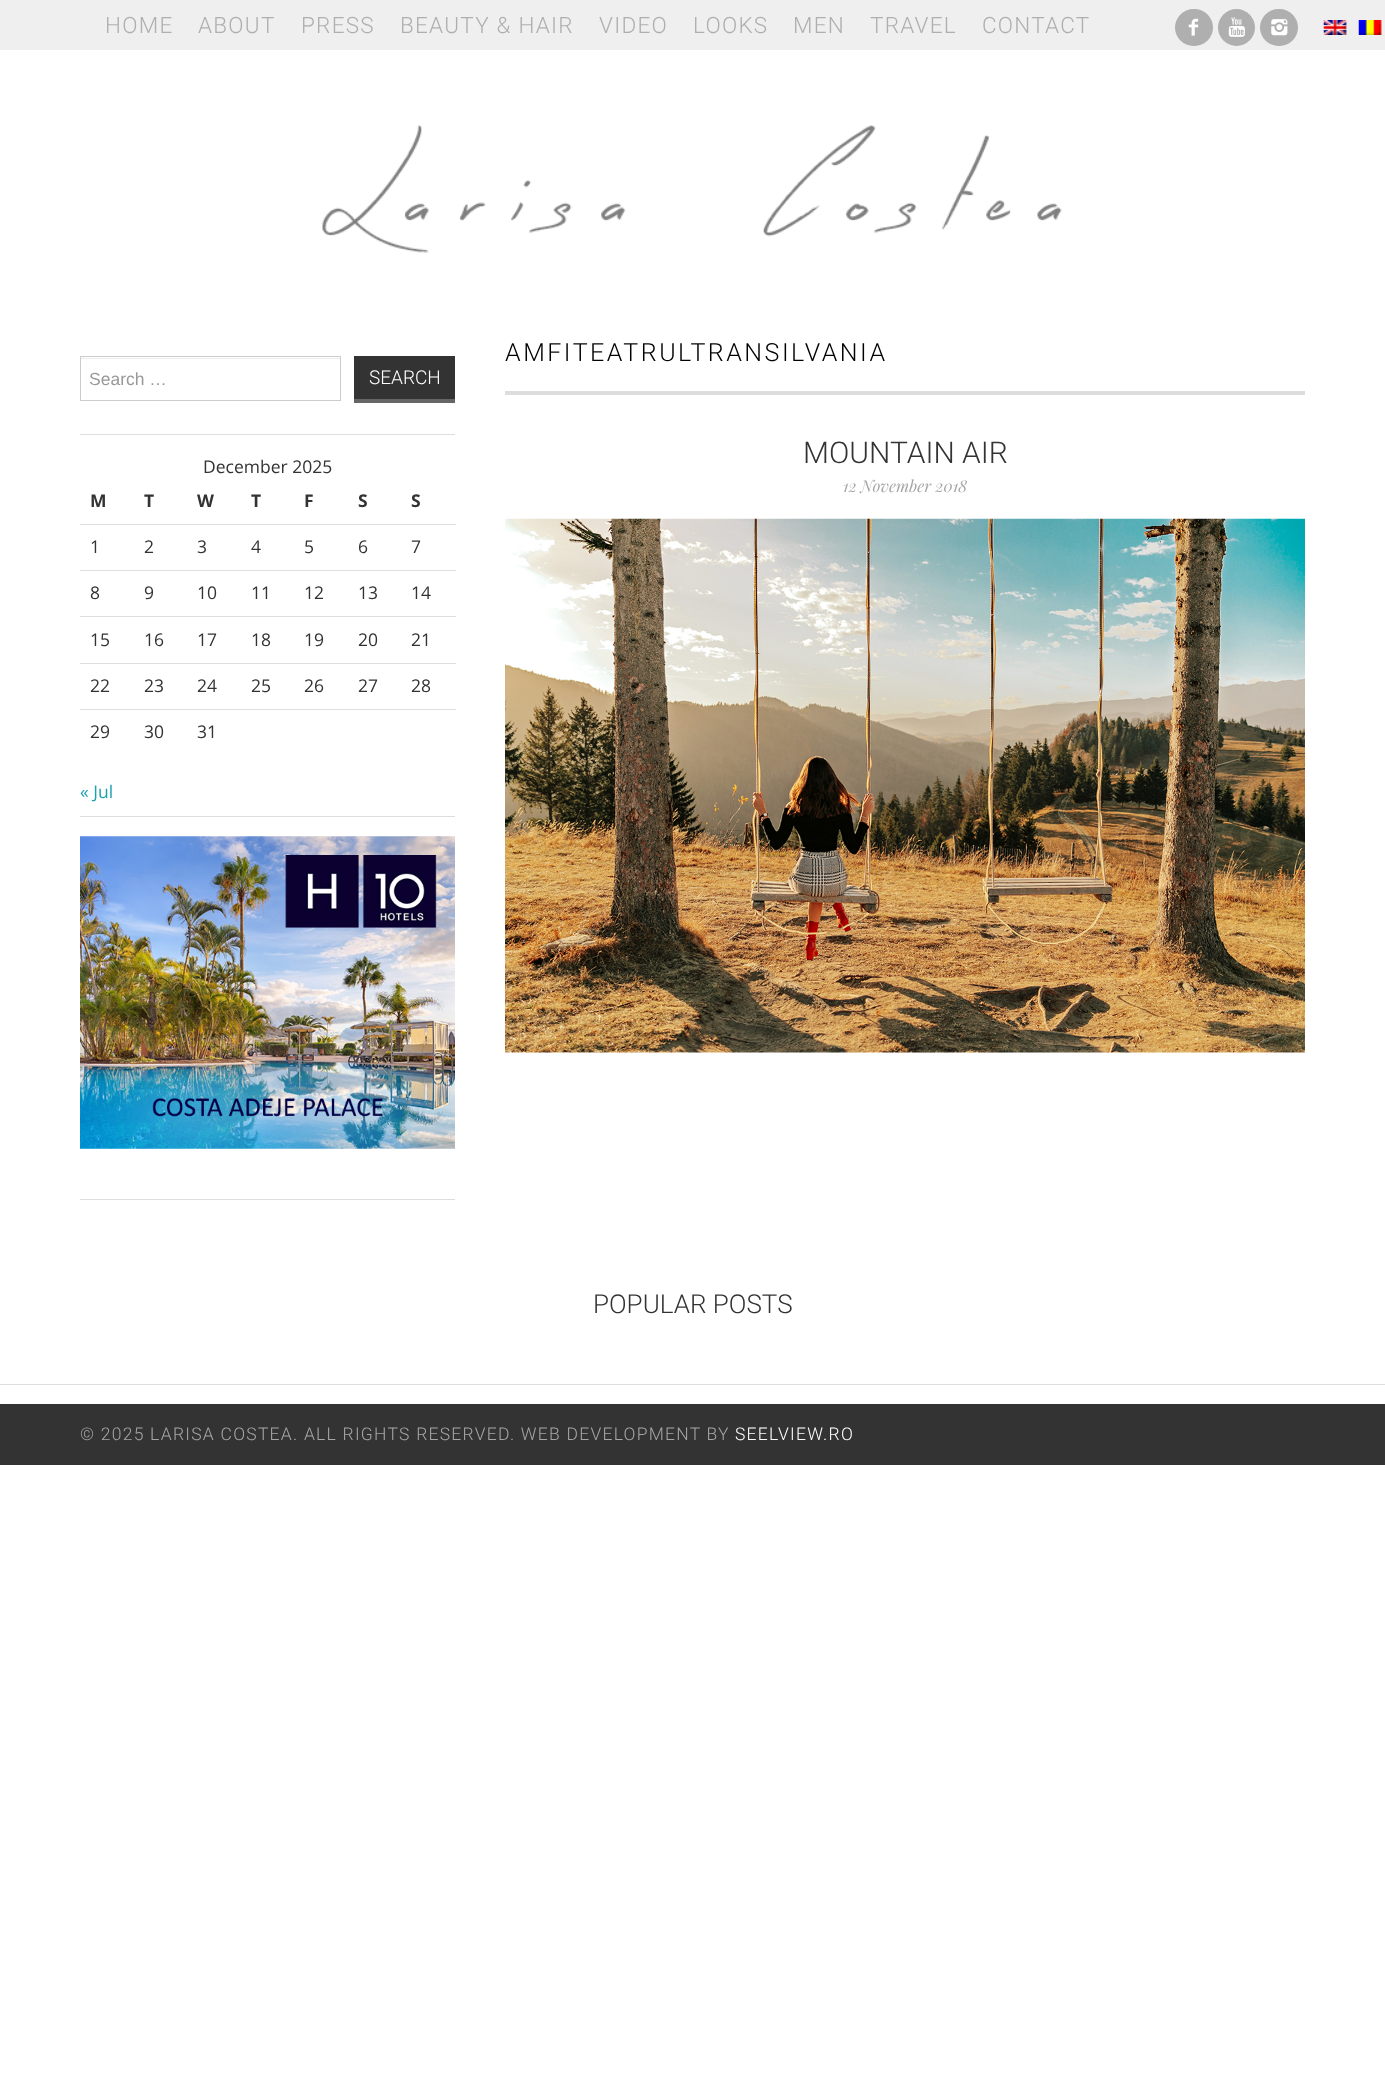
async function draw(canvas) {
  canvas.width = 1385;
  canvas.height = 2077;
  const ctx = canvas.getContext('2d');
  ctx.miterLimit = 4;
  ctx.fontKerning = 'normal';
  function label(s, x, y, font, color) {
    ctx.font = font;
    ctx.fillStyle = color;
    ctx.fillText(s, x, y);
  }
  function rect(x, y, w, h, color) {
    ctx.fillStyle = color;
    ctx.fillRect(x, y, w, h);
  }
  function roundedRect(x, y, w, h, r, color) {
    ctx.fillStyle = color;
    ctx.beginPath();
    ctx.roundRect(x, y, w, h, r);
    ctx.fill();
  }
  async function image(src, x, y, w, h) {
    const img = new Image();
    img.src = src;
    await img.decode();
    ctx.drawImage(img, x, y, w, h);
  }

  rect(0, 0, 1385, 2077, '#fff');
  rect(0, 0, 1385, 50, '#efefef');
  ctx.letterSpacing = '1.25px';
  label('HOME', 105, 33, '300 22.5px Roboto', '#afafaf');
  label('ABOUT', 198, 33, '300 22.5px Roboto', '#afafaf');
  label('PRESS', 301, 33, '300 22.5px Roboto', '#afafaf');
  label('BEAUTY & HAIR', 400, 33, '300 22.5px Roboto', '#afafaf');
  label('VIDEO', 599, 33, '300 22.5px Roboto', '#afafaf');
  label('LOOKS', 693, 33, '300 22.5px Roboto', '#afafaf');
  label('MEN', 793, 33, '300 22.5px Roboto', '#afafaf');
  label('TRAVEL', 870, 33, '300 22.5px Roboto', '#afafaf');
  label('CONTACT', 982, 33, '300 22.5px Roboto', '#afafaf');
  roundedRect(1175, 9, 38, 37, 18.5, '#afafaf');
  await image('assets/img1.png', 1188, 18, 11, 18);
  ctx.beginPath();
  ctx.arc(1236.5, 27.5, 18.5, 0, 2 * Math.PI);
  ctx.fill();
  await image('assets/img2.png', 1228, 17, 17, 20);
  roundedRect(1260, 9, 38, 37, 18.5, '#afafaf');
  await image('assets/img3.png', 1271, 19, 17, 17);
  await image('assets/img4.png', 1323, 20, 24, 15);
  await image('assets/img5.png', 1358, 20, 24, 15);
  await image('assets/img6.png', 322, 125, 740, 128);
  rect(80, 434, 375, 1, '#ddd');
  rect(81, 358, 259, 1, '#ececec');
  ctx.strokeStyle = '#ccc';
  ctx.strokeRect(80.5, 356.5, 260, 44);
  ctx.letterSpacing = '0px';
  label('Search …', 89, 385, '17.5px Liberation Sans', '#999');
  rect(354, 356, 101, 43, '#333');
  rect(354, 399, 101, 4, '#666');
  label('SEARCH', 369, 384, '300 19px Roboto', '#fff');
  rect(80, 816, 375, 1, '#ddd');
  label('December 2025', 203, 473, '17.5px Open Sans', '#333');
  label('M', 90, 507, 'bold 17.5px Open Sans', '#333');
  label('T', 144, 507, 'bold 17.5px Open Sans', '#333');
  label('W', 197, 507, 'bold 17.5px Open Sans', '#333');
  label('T', 251, 507, 'bold 17.5px Open Sans', '#333');
  label('F', 304, 507, 'bold 17.5px Open Sans', '#333');
  label('S', 358, 507, 'bold 17.5px Open Sans', '#333');
  label('S', 411, 507, 'bold 17.5px Open Sans', '#333');
  label('1', 90, 553, '17.5px Open Sans', '#333');
  label('2', 144, 553, '17.5px Open Sans', '#333');
  label('3', 197, 553, '17.5px Open Sans', '#333');
  label('4', 251, 553, '17.5px Open Sans', '#333');
  label('5', 304, 553, '17.5px Open Sans', '#333');
  label('6', 358, 553, '17.5px Open Sans', '#333');
  rect(80, 524, 376, 1, '#ddd');
  label('7', 411, 553, '17.5px Open Sans', '#333');
  label('8', 90, 599, '17.5px Open Sans', '#333');
  label('9', 144, 599, '17.5px Open Sans', '#333');
  label('10', 197, 599, '17.5px Open Sans', '#333');
  label('11', 251, 599, '17.5px Open Sans', '#333');
  label('12', 304, 599, '17.5px Open Sans', '#333');
  label('13', 358, 599, '17.5px Open Sans', '#333');
  rect(80, 570, 376, 1, '#ddd');
  label('14', 411, 599, '17.5px Open Sans', '#333');
  label('15', 90, 646, '17.5px Open Sans', '#333');
  label('16', 144, 646, '17.5px Open Sans', '#333');
  label('17', 197, 646, '17.5px Open Sans', '#333');
  label('18', 251, 646, '17.5px Open Sans', '#333');
  label('19', 304, 646, '17.5px Open Sans', '#333');
  label('20', 358, 646, '17.5px Open Sans', '#333');
  rect(80, 616, 376, 1, '#ddd');
  label('21', 411, 646, '17.5px Open Sans', '#333');
  label('22', 90, 692, '17.5px Open Sans', '#333');
  label('23', 144, 692, '17.5px Open Sans', '#333');
  label('24', 197, 692, '17.5px Open Sans', '#333');
  label('25', 251, 692, '17.5px Open Sans', '#333');
  label('26', 304, 692, '17.5px Open Sans', '#333');
  label('27', 358, 692, '17.5px Open Sans', '#333');
  rect(80, 663, 376, 1, '#ddd');
  label('28', 411, 692, '17.5px Open Sans', '#333');
  rect(80, 709, 376, 1, '#ddd');
  label('29', 90, 738, '17.5px Open Sans', '#333');
  label('30', 144, 738, '17.5px Open Sans', '#333');
  label('31', 197, 738, '17.5px Open Sans', '#333');
  label('« Jul', 80, 798, '17.5px Open Sans', '#1fa0ae');
  rect(80, 1199, 375, 1, '#ddd');
  await image('assets/img7.png', 80, 836, 375, 313);
  rect(505, 391, 800, 4, '#ddd');
  ctx.letterSpacing = '2.5px';
  label('AMFITEATRULTRANSILVANIA', 505, 361, '300 25px Roboto', '#000');
  ctx.letterSpacing = '0px';
  label('MOUNTAIN AIR', 803, 463, '300 30px Roboto', '#333');
  label('12 November 2018', 843, 492, 'italic 16.25px Playfair Display', '#a6a6a6');
  await image('assets/img8.png', 505, 518, 800, 535);
  label('POPULAR POSTS', 593, 1313, '300 26px Roboto', '#333');
  rect(0, 1384, 1385, 1, '#ddd');
  rect(0, 1404, 1385, 61, '#333');
  ctx.letterSpacing = '1.25px';
  label('© 2025 LARISA COSTEA. ALL RIGHTS RESERVED. WEB DEVELOPMENT BY', 80, 1440, '300 17.5px Roboto', '#a6a6a6');
  label('SEELVIEW.RO', 735, 1440, '300 17.5px Roboto', '#fff');
}

draw(document.querySelector('canvas'));
